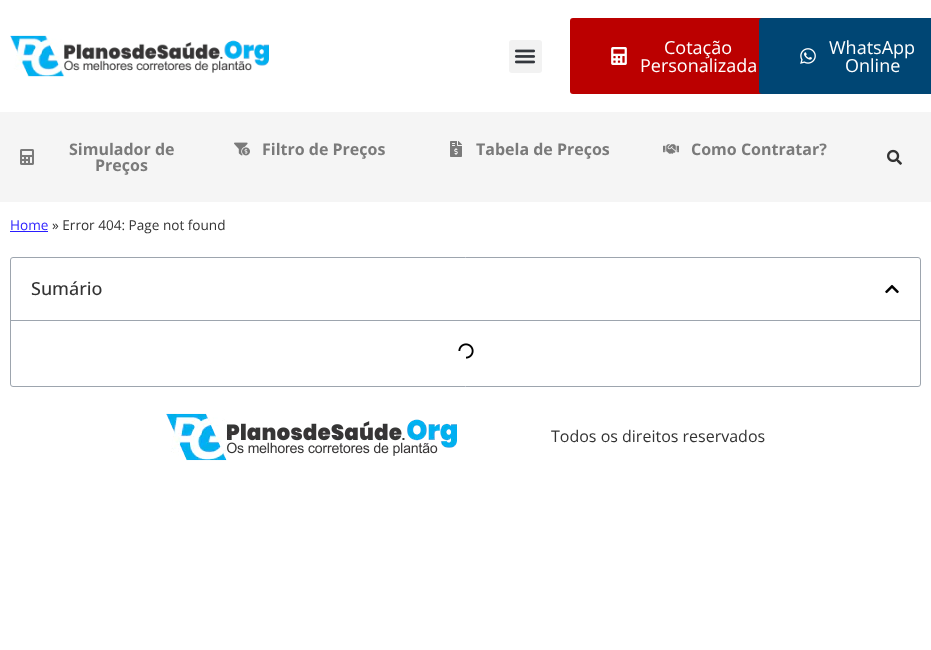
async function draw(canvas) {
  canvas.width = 931;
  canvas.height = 650;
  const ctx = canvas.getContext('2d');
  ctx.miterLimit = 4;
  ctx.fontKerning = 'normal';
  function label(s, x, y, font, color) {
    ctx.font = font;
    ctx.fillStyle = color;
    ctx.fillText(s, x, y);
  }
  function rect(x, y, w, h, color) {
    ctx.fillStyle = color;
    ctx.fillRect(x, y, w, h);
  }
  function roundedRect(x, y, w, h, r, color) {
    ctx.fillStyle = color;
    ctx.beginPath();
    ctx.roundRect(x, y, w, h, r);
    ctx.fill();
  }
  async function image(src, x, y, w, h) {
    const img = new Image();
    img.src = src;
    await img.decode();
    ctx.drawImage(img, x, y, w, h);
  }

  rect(0, 0, 931, 650, '#fff');
  await image('assets/img1.png', 10, 35, 259, 42);
  roundedRect(509, 40, 33, 33, 3, '#f2f2f2');
  await image('assets/img2.png', 514, 49, 22, 15);
  roundedRect(570, 18, 227, 76, 3, '#b00');
  await image('assets/img3.png', 611, 47, 16, 18);
  label('Cotação', 664, 54, '18px Open Sans', '#fff');
  label('Personalizada', 640, 72, '18px Open Sans', '#fff');
  roundedRect(759, 18, 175, 76, 3, '#004674');
  await image('assets/img4.png', 800, 48, 16, 16);
  label('WhatsApp', 829, 54, '18px Open Sans', '#fff');
  label('Online', 845, 72, '18px Open Sans', '#fff');
  rect(0, 112, 931, 90, '#f5f5f5');
  await image('assets/img5.png', 20, 149, 14, 16);
  label('Simulador de', 69, 155, 'bold 16px Open Sans', '#7a7a7a');
  label('Preços', 95, 171, 'bold 16px Open Sans', '#7a7a7a');
  await image('assets/img6.png', 234, 142, 16, 14);
  label('Filtro de Preços', 262, 155, 'bold 16px Open Sans', '#7a7a7a');
  await image('assets/img7.png', 450, 141, 12, 16);
  label('Tabela de Preços', 476, 155, 'bold 16px Open Sans', '#7a7a7a');
  await image('assets/img8.png', 663, 144, 16, 10);
  label('Como Contratar?', 691, 155, 'bold 16px Open Sans', '#7a7a7a');
  await image('assets/img9.png', 887, 149, 15, 16);
  label('Home', 10, 230, '13.6px Open Sans', '#2a1dff');
  rect(10, 231, 38, 1, '#2a1dff');
  label('» Error 404: Page not found', 52, 230, '13.6px Open Sans', '#333');
  ctx.beginPath();
  ctx.roundRect(10.5, 257.5, 910, 129, 2.5);
  ctx.strokeStyle = '#9da5ae';
  ctx.stroke();
  rect(11, 320, 909, 1, '#9da5ae');
  label('Sumário', 31, 295, '500 18px Open Sans', '#333');
  await image('assets/img10.png', 885, 284, 14, 10);
  await image('assets/img11.png', 458, 343, 16, 16);
  await image('assets/img12.png', 166, 413, 291, 48);
  label('Todos os direitos reservados', 551, 442, '16px Open Sans', '#333');
}

draw(document.querySelector('canvas'));
